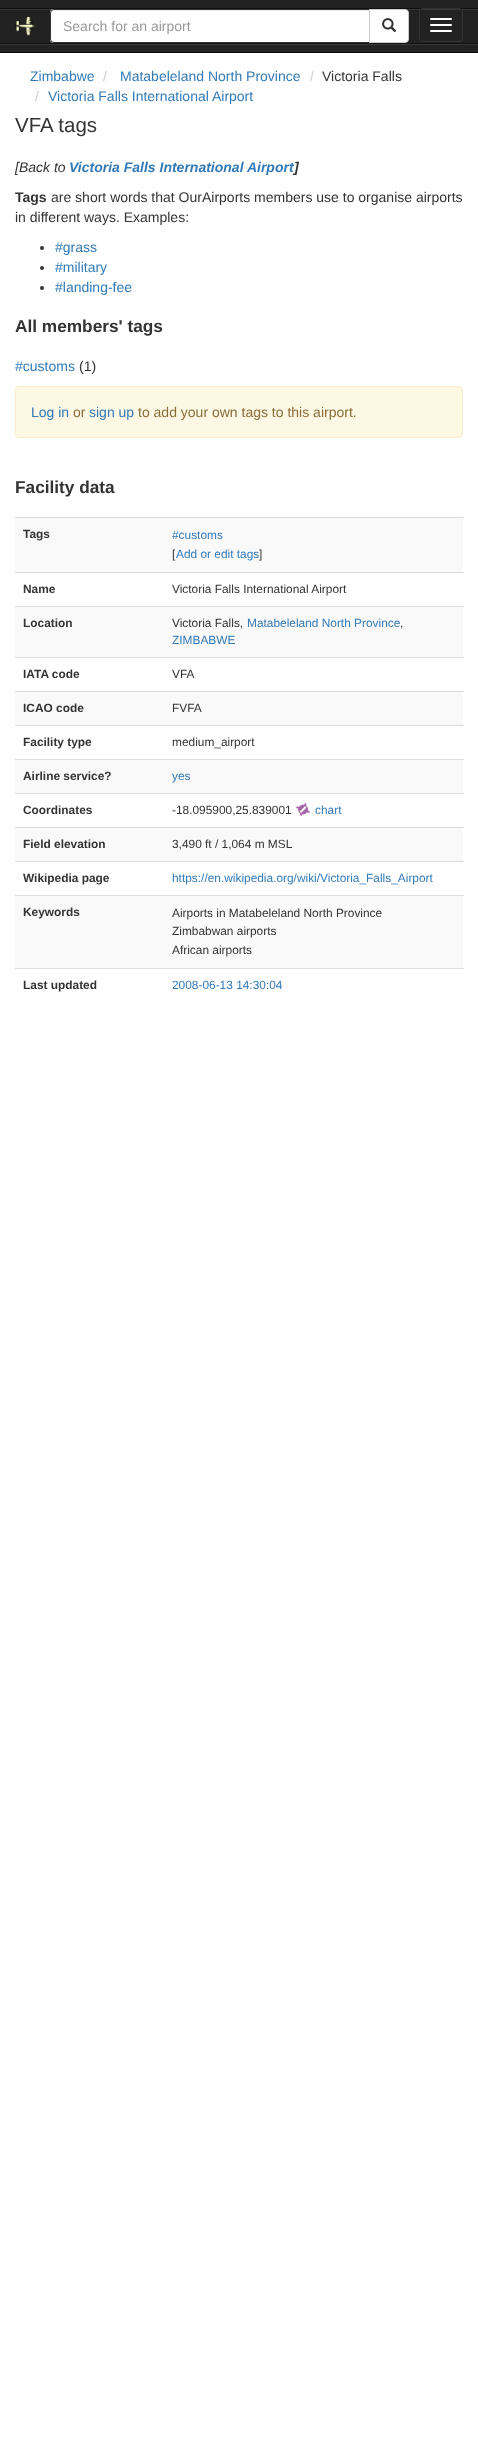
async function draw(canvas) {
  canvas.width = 478;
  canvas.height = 2452;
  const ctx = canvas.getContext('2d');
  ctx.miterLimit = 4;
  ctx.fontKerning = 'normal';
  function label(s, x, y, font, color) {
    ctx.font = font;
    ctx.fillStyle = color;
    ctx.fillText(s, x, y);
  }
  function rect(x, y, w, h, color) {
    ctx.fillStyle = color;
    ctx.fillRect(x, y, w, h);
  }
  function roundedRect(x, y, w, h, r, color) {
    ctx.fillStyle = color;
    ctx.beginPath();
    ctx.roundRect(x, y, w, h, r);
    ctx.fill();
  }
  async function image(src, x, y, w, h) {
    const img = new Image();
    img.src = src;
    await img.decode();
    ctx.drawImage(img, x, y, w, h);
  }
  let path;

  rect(0, 0, 478, 2452, '#fff');
  rect(0, 0, 478, 52, '#222');
  rect(0, 52, 478, 1, '#080808');
  await image('assets/img1.png', 15, 16, 20, 20);
  rect(0, 44, 478, 1, '#383838');
  rect(0, 9, 478, 1, '#383838');
  rect(0, 8, 478, 1, '#101010');
  rect(0, 43, 478, 1, '#101010');
  ctx.fillStyle = '#fff';
  ctx.beginPath();
  ctx.roundRect(50, 9, 320, 34, [4, 0, 0, 4]);
  ctx.fill();
  ctx.fillStyle = '#ececec';
  path = new Path2D('M54 11H369V10H54C52 10 51 12 51 14C51 12 52 11 54 11Z');
  ctx.fill(path);
  ctx.beginPath();
  ctx.roundRect(50.5, 9.5, 319, 33, [3.5, 0, 0, 3.5]);
  ctx.strokeStyle = '#333';
  ctx.stroke();
  label('Search for an airport', 63, 31, '14px Liberation Sans', '#999');
  ctx.fillStyle = '#fff';
  ctx.beginPath();
  ctx.roundRect(369.5, 9.5, 39, 33, [0, 3.5, 3.5, 0]);
  ctx.fill();
  ctx.strokeStyle = '#ccc';
  ctx.stroke();
  await image('assets/img2.png', 382, 18, 15, 14);
  ctx.beginPath();
  ctx.roundRect(419.5, 8.5, 43, 33, 3.5);
  ctx.strokeStyle = '#333';
  ctx.stroke();
  roundedRect(430, 18, 22, 2, 1, '#fff');
  roundedRect(430, 24, 22, 2, 1, '#fff');
  roundedRect(430, 30, 22, 2, 1, '#fff');
  label('Zimbabwe', 30, 81, '14px Liberation Sans', '#337ab7');
  label('/', 103, 81, '14px Liberation Sans', '#ccc');
  label('Matabeleland North Province', 120, 81, '14px Liberation Sans', '#337ab7');
  label('/', 310, 81, '14px Liberation Sans', '#ccc');
  label('Victoria Falls', 322, 81, '14px Liberation Sans', '#333');
  label('/', 35, 101, '14px Liberation Sans', '#ccc');
  label('Victoria Falls International Airport', 48, 101, '14px Liberation Sans', '#337ab7');
  label('VFA tags', 15, 132, '20.5px Liberation Sans', '#333');
  label('[Back to', 15, 172, 'italic 14px Liberation Sans', '#333');
  label('Victoria Falls International Airport', 69, 172, 'italic bold 14px Liberation Sans', '#337ab7');
  label(']', 294, 172, 'italic bold 14px Liberation Sans', '#333');
  label('Tags', 15, 202, 'bold 14px Liberation Sans', '#333');
  label('are short words that OurAirports members use to organise airports', 51, 202, '14px Liberation Sans', '#333');
  label('in different ways. Examples:', 15, 222, '14px Liberation Sans', '#333');
  ctx.beginPath();
  ctx.arc(42, 248, 2, 0, 2 * Math.PI);
  ctx.fill();
  label('#grass', 55, 252, '14px Liberation Sans', '#337ab7');
  ctx.fillStyle = '#333';
  ctx.beginPath();
  ctx.arc(42, 268, 2, 0, 2 * Math.PI);
  ctx.fill();
  label('#military', 55, 272, '14px Liberation Sans', '#337ab7');
  ctx.fillStyle = '#333';
  ctx.beginPath();
  ctx.arc(42, 288, 2, 0, 2 * Math.PI);
  ctx.fill();
  label('#landing-fee', 55, 292, '14px Liberation Sans', '#337ab7');
  label('All members\' tags', 15, 332, 'bold 17.25px Liberation Sans', '#333');
  label('#customs', 15, 371, '14px Liberation Sans', '#337ab7');
  label('(1)', 79, 371, '14px Liberation Sans', '#333');
  ctx.fillStyle = '#fcf8e3';
  ctx.beginPath();
  ctx.roundRect(15.5, 386.5, 447, 51, 3.5);
  ctx.fill();
  ctx.strokeStyle = '#faebcc';
  ctx.stroke();
  label('Log in', 31, 417, '14px Liberation Sans', '#337ab7');
  label('or', 73, 417, '14px Liberation Sans', '#8a6d3b');
  label('sign up', 89, 417, '14px Liberation Sans', '#337ab7');
  label('to add your own tags to this airport.', 138, 417, '14px Liberation Sans', '#8a6d3b');
  label('Facility data', 15, 493, 'bold 17.25px Liberation Sans', '#333');
  rect(15, 518, 448, 54, '#f9f9f9');
  label('Tags', 23, 538, 'bold 11.9px Liberation Sans', '#333');
  rect(15, 517, 449, 1, '#ddd');
  label('#customs', 172, 539, '11.9px Liberation Sans', '#337ab7');
  label('[', 172, 558, '11.9px Liberation Sans', '#333');
  label('Add or edit tags', 176, 558, '11.9px Liberation Sans', '#337ab7');
  label(']', 259, 558, '11.9px Liberation Sans', '#333');
  label('Name', 23, 593, 'bold 11.9px Liberation Sans', '#333');
  rect(15, 572, 449, 1, '#ddd');
  label('Victoria Falls International Airport', 172, 593, '11.9px Liberation Sans', '#333');
  rect(15, 607, 448, 50, '#f9f9f9');
  label('Location', 23, 627, 'bold 11.9px Liberation Sans', '#333');
  rect(15, 606, 449, 1, '#ddd');
  label('Victoria Falls,', 172, 627, '11.9px Liberation Sans', '#333');
  label('Matabeleland North Province', 247, 627, '11.9px Liberation Sans', '#337ab7');
  label(',', 400, 627, '11.9px Liberation Sans', '#333');
  label('ZIMBABWE', 172, 644, '11.9px Liberation Sans', '#337ab7');
  label('IATA code', 23, 678, 'bold 11.9px Liberation Sans', '#333');
  rect(15, 657, 449, 1, '#ddd');
  label('VFA', 172, 678, '11.9px Liberation Sans', '#333');
  rect(15, 692, 448, 33, '#f9f9f9');
  label('ICAO code', 23, 712, 'bold 11.9px Liberation Sans', '#333');
  rect(15, 691, 449, 1, '#ddd');
  label('FVFA', 172, 712, '11.9px Liberation Sans', '#333');
  label('Facility type', 23, 746, 'bold 11.9px Liberation Sans', '#333');
  rect(15, 725, 449, 1, '#ddd');
  label('medium_airport', 172, 746, '11.9px Liberation Sans', '#333');
  rect(15, 760, 448, 33, '#f9f9f9');
  label('Airline service?', 23, 780, 'bold 11.9px Liberation Sans', '#333');
  rect(15, 759, 449, 1, '#ddd');
  label('yes', 172, 780, '11.9px Liberation Sans', '#337ab7');
  label('Coordinates', 23, 814, 'bold 11.9px Liberation Sans', '#333');
  rect(15, 793, 449, 1, '#ddd');
  label('-18.095900,25.839001', 172, 814, '11.9px Liberation Sans', '#333');
  await image('assets/img3.png', 296, 803, 14, 13);
  label('chart', 315, 814, '11.9px Liberation Sans', '#337ab7');
  rect(15, 828, 448, 33, '#f9f9f9');
  label('Field elevation', 23, 848, 'bold 11.9px Liberation Sans', '#333');
  rect(15, 827, 449, 1, '#ddd');
  label('3,490 ft / 1,064 m MSL', 172, 848, '11.9px Liberation Sans', '#333');
  label('Wikipedia page', 23, 882, 'bold 11.9px Liberation Sans', '#333');
  rect(15, 861, 449, 1, '#ddd');
  label('https://en.wikipedia.org/wiki/Victoria_Falls_Airport', 172, 882, '11.9px Liberation Sans', '#337ab7');
  rect(15, 896, 448, 72, '#f9f9f9');
  label('Keywords', 23, 916, 'bold 11.9px Liberation Sans', '#333');
  rect(15, 895, 449, 1, '#ddd');
  label('Airports in Matabeleland North Province', 172, 917, '11.9px Liberation Sans', '#333');
  label('Zimbabwan airports', 172, 935, '11.9px Liberation Sans', '#333');
  label('African airports', 172, 954, '11.9px Liberation Sans', '#333');
  label('Last updated', 23, 989, 'bold 11.9px Liberation Sans', '#333');
  rect(15, 968, 449, 1, '#ddd');
  label('2008-06-13 14:30:04', 172, 989, '11.9px Liberation Sans', '#337ab7');
}

draw(document.querySelector('canvas'));
